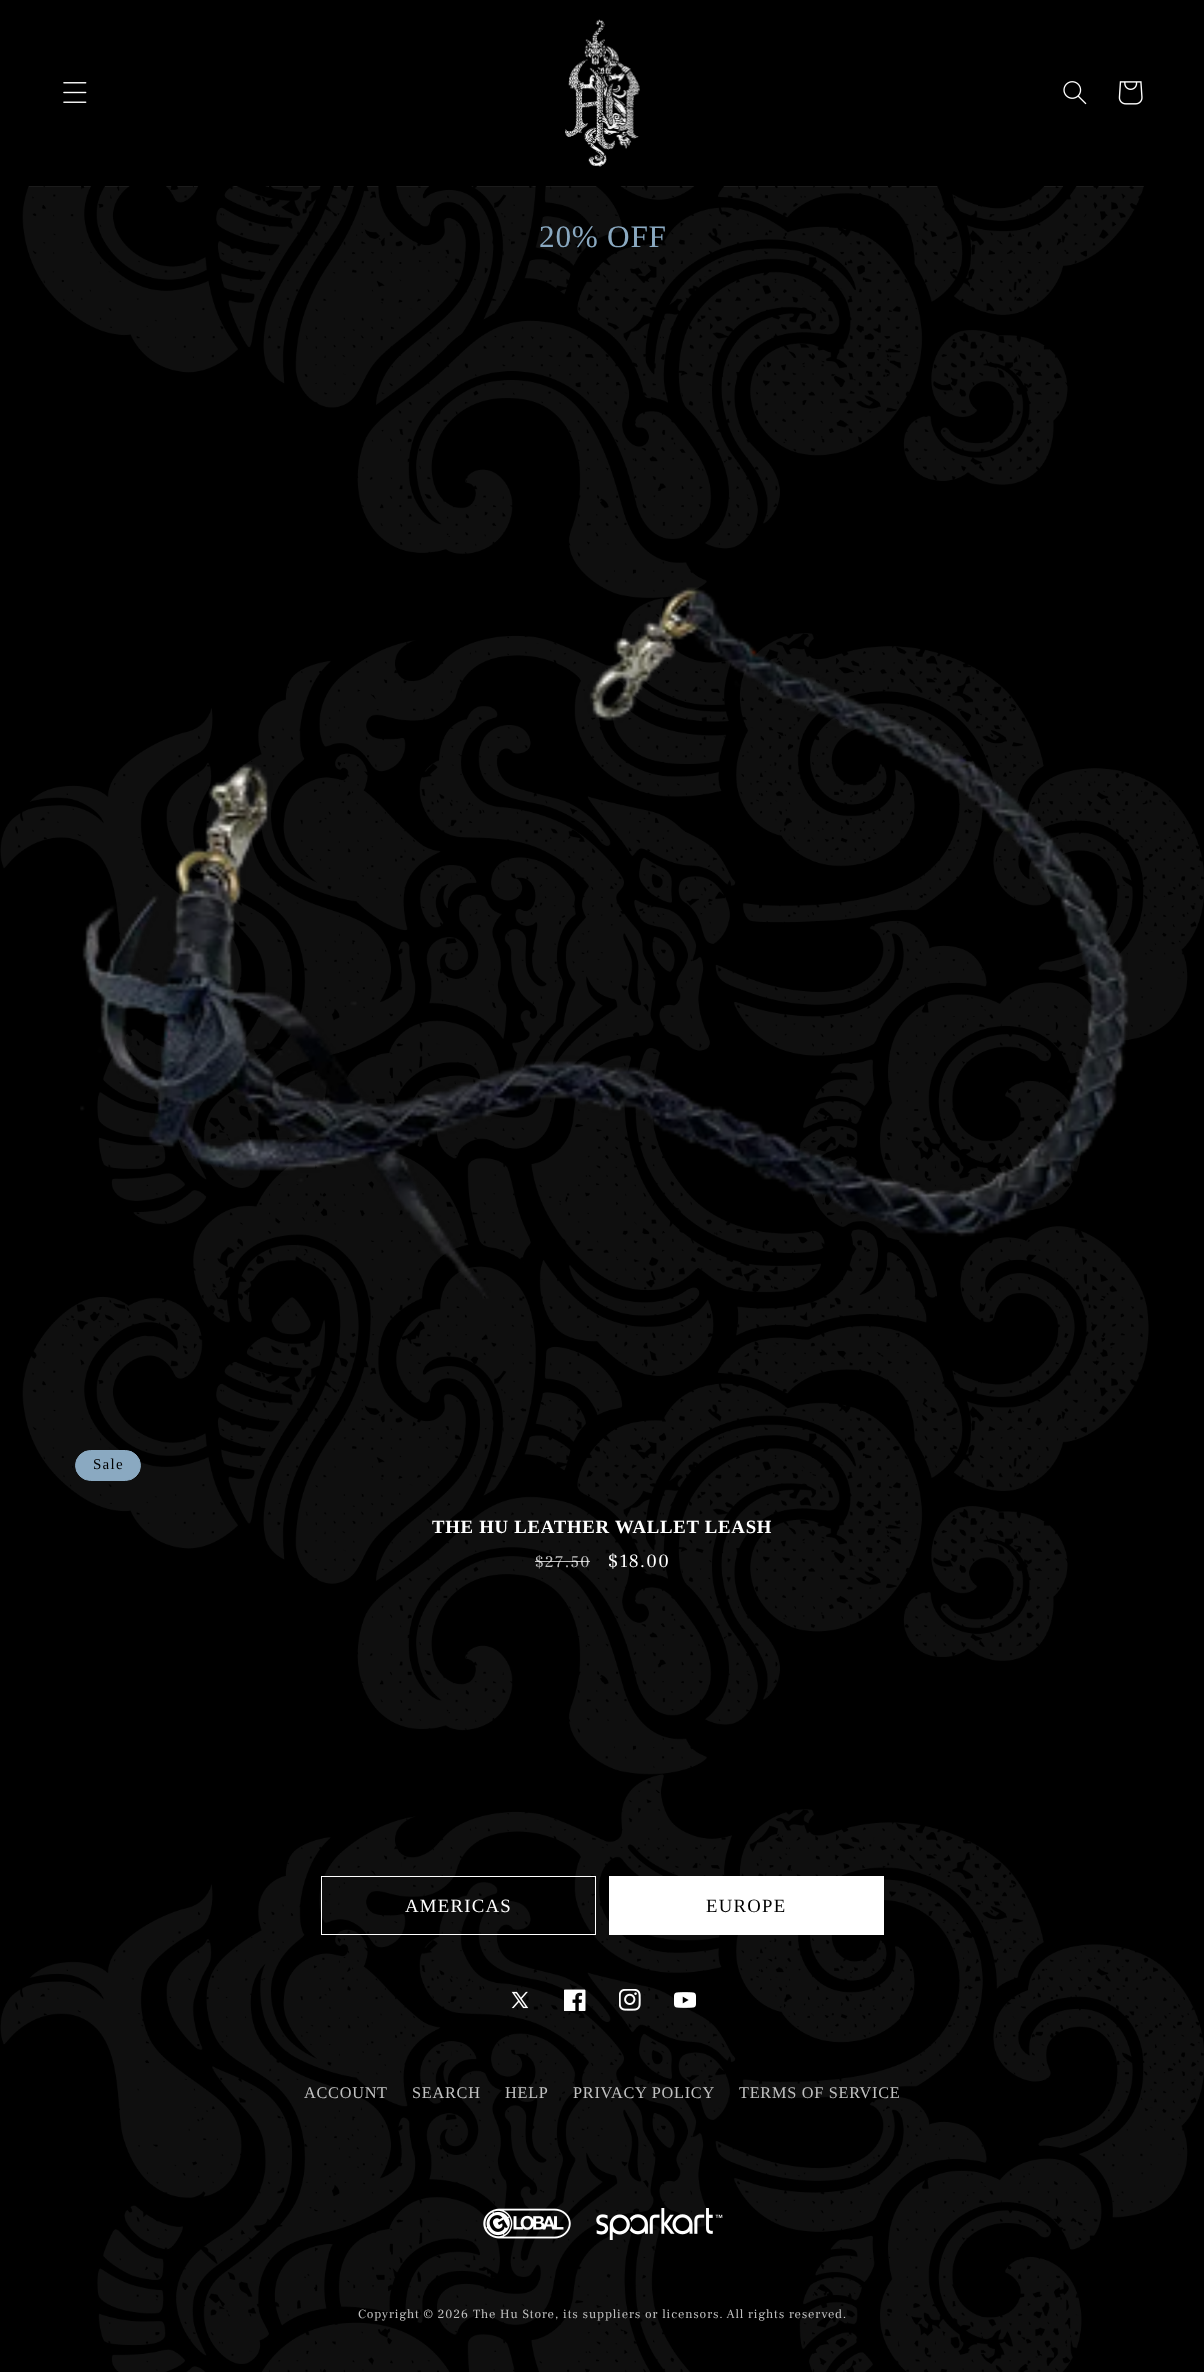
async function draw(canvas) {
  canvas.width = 1204;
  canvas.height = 2372;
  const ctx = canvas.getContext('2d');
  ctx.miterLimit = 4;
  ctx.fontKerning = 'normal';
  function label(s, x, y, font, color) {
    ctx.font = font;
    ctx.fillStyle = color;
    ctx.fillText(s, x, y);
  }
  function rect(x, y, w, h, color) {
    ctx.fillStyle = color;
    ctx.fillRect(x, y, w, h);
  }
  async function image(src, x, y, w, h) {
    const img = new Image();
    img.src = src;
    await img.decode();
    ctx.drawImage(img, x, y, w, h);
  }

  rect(0, 0, 1204, 2372, '#000');
  await image('assets/img6.png', 0, 186, 1204, 1585);
  await image('assets/img1.png', 28, 186, 1116, 1);
  await image('assets/img2.png', 63, 82, 24, 21);
  await image('assets/img3.png', 565, 19, 75, 148);
  await image('assets/img4.png', 1063, 81, 24, 24);
  await image('assets/img5.png', 1118, 81, 25, 24);
  ctx.letterSpacing = '0.75px';
  label('20% OFF', 539, 247, '31.25px Liberation Serif', '#8aa9c1');
  await image('assets/img7.png', 80, 587, 1049, 712);
  ctx.beginPath();
  ctx.roundRect(75.5, 1450.5, 65, 30, 15);
  ctx.fill();
  ctx.strokeStyle = '#8aa9c1';
  ctx.stroke();
  ctx.letterSpacing = '1.25px';
  label('Sale', 93, 1469, '15px Liberation Serif', '#000');
  ctx.letterSpacing = '0.75px';
  label('THE HU LEATHER WALLET LEASH', 432, 1533, 'bold 18.75px Liberation Serif', '#fff');
  ctx.letterSpacing = '1.25px';
  label('$27.50', 535, 1567, '16.25px Frank Ruhl Libre', '#c2c2c2');
  rect(535, 1561, 55, 1, '#ffffffbf');
  label('$18.00', 608, 1567, '18.75px Frank Ruhl Libre', '#fff');
  await image('assets/img8.png', 0, 1771, 1204, 601);
  ctx.strokeStyle = '#fff';
  ctx.strokeRect(321.5, 1876.5, 274, 58);
  label('AMERICAS', 405, 1912, '18.75px Liberation Serif', '#fff');
  rect(609, 1876, 275, 59, '#fff');
  label('EUROPE', 706, 1912, '18.75px Liberation Serif', '#000');
  await image('assets/img9.png', 511, 1991, 18, 18);
  await image('assets/img10.png', 564, 1989, 22, 22);
  await image('assets/img11.png', 619, 1989, 22, 22);
  await image('assets/img12.png', 674, 1992, 22, 16);
  ctx.letterSpacing = '0.75px';
  label('ACCOUNT', 304, 2098, '16.25px Liberation Serif', '#c2c2c2');
  label('SEARCH', 412, 2098, '16.25px Liberation Serif', '#c2c2c2');
  label('HELP', 505, 2098, '16.25px Liberation Serif', '#c2c2c2');
  label('PRIVACY POLICY', 573, 2098, '16.25px Liberation Serif', '#c2c2c2');
  label('TERMS OF SERVICE', 739, 2098, '16.25px Liberation Serif', '#c2c2c2');
  await image('assets/img13.png', 483, 2208, 88, 31);
  await image('assets/img14.png', 596, 2208, 127, 32);
  ctx.letterSpacing = '0.88px';
  label('Copyright © 2026', 358, 2318, '12.5px Frank Ruhl Libre', '#c2c2c2');
  label('The Hu Store', 473, 2318, '12.5px Frank Ruhl Libre', '#c2c2c2');
  label(', its suppliers or licensors. All rights reserved.', 555, 2318, '12.5px Frank Ruhl Libre', '#c2c2c2');
}

draw(document.querySelector('canvas'));
